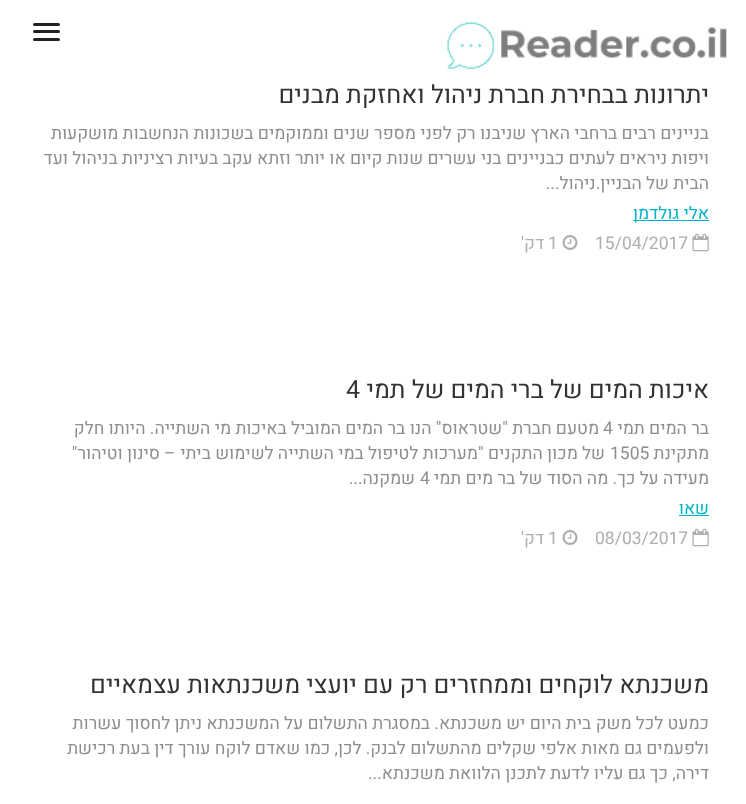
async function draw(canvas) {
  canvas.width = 746;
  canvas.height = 804;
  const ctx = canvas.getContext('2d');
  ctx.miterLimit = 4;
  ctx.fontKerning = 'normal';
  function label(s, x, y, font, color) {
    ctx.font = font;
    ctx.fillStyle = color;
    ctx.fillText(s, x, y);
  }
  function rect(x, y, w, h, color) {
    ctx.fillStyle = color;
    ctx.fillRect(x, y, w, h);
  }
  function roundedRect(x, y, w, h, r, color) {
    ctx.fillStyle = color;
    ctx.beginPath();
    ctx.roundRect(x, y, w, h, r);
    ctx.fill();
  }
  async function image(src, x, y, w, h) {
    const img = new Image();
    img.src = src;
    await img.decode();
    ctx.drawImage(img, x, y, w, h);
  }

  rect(0, 0, 746, 804, '#fff');
  await image('assets/img1.png', 447, 22, 280, 47);
  roundedRect(33, 23, 27, 3, 1.5, '#222');
  roundedRect(33, 30, 27, 3, 1.5, '#222');
  roundedRect(33, 38, 27, 3, 1.5, '#222');
  ctx.direction = 'rtl';
  label('יתרונות בבחירת חברת ניהול ואחזקת מבנים', 709, 103, '25px Heebo', '#333');
  label('בניינים רבים ברחבי הארץ שניבנו רק לפני מספר שנים וממוקמים בשכונות הנחשבות מושקעות', 709, 139, '17.5px Heebo', '#8e8e8e');
  label('ויפות ניראים לעתים כבניינים בני עשרים שנות קיום או יותר וזתא עקב בעיות רציניות בניהול ועד', 709, 164, '17.5px Heebo', '#8e8e8e');
  label('הבית של הבניין.ניהול...', 709, 189, '17.5px Heebo', '#8e8e8e');
  rect(633, 220, 76, 1, '#00b4cc');
  label('אלי גולדמן', 709, 219, '17.5px Heebo', '#00b4cc');
  await image('assets/img2.png', 692, 233, 17, 19);
  ctx.direction = 'ltr';
  label('15/04/2017', 595, 249, '17.5px Heebo', '#aeaeae');
  await image('assets/img3.png', 562, 235, 16, 15);
  label('1', 548, 249, '17.5px Heebo', '#aeaeae');
  ctx.direction = 'rtl';
  label('דק\'', 544, 249, '17.5px Heebo', '#aeaeae');
  label('איכות המים של ברי המים של תמי', 709, 398, '25px Heebo', '#333');
  ctx.direction = 'ltr';
  label('4', 346, 398, '25px Heebo', '#333');
  ctx.direction = 'rtl';
  label('בר המים תמי', 709, 434, '17.5px Heebo', '#8e8e8e');
  ctx.direction = 'ltr';
  label('4', 603, 434, '17.5px Heebo', '#8e8e8e');
  ctx.direction = 'rtl';
  label('מטעם חברת "שטראוס" הנו בר המים המוביל באיכות מי השתייה. היותו חלק', 599, 434, '17.5px Heebo', '#8e8e8e');
  label('מתקינת', 709, 459, '17.5px Heebo', '#8e8e8e');
  ctx.direction = 'ltr';
  label('1505', 610, 459, '17.5px Heebo', '#8e8e8e');
  ctx.direction = 'rtl';
  label('של מכון התקנים "מערכות לטיפול במי השתייה לשימוש ביתי – סינון וטיהור"', 605, 459, '17.5px Heebo', '#8e8e8e');
  label('מעידה על כך. מה הסוד של בר מים תמי', 709, 484, '17.5px Heebo', '#8e8e8e');
  ctx.direction = 'ltr';
  label('4', 420, 484, '17.5px Heebo', '#8e8e8e');
  ctx.direction = 'rtl';
  label('שמקנה...', 415, 484, '17.5px Heebo', '#8e8e8e');
  label('שאו', 709, 514, '17.5px Heebo', '#00b4cc');
  rect(679, 515, 30, 1, '#00b4cc');
  await image('assets/img2.png', 692, 528, 17, 19);
  ctx.direction = 'ltr';
  label('08/03/2017', 595, 544, '17.5px Heebo', '#aeaeae');
  await image('assets/img3.png', 562, 530, 16, 15);
  label('1', 548, 544, '17.5px Heebo', '#aeaeae');
  ctx.direction = 'rtl';
  label('דק\'', 544, 544, '17.5px Heebo', '#aeaeae');
  label('משכנתא לוקחים וממחזרים רק עם יועצי משכנתאות עצמאיים', 709, 693, '25px Heebo', '#333');
  label('כמעט לכל משק בית היום יש משכנתא. במסגרת התשלום על המשכנתא ניתן לחסוך עשרות', 709, 729, '17.5px Heebo', '#8e8e8e');
  label('ולפעמים גם מאות אלפי שקלים מהתשלום לבנק. לכן, כמו שאדם לוקח עורך דין בעת רכישת', 709, 754, '17.5px Heebo', '#8e8e8e');
  label('דירה, כך גם עליו לדעת לתכנן הלוואת משכנתא...', 709, 779, '17.5px Heebo', '#8e8e8e');
}

draw(document.querySelector('canvas'));
